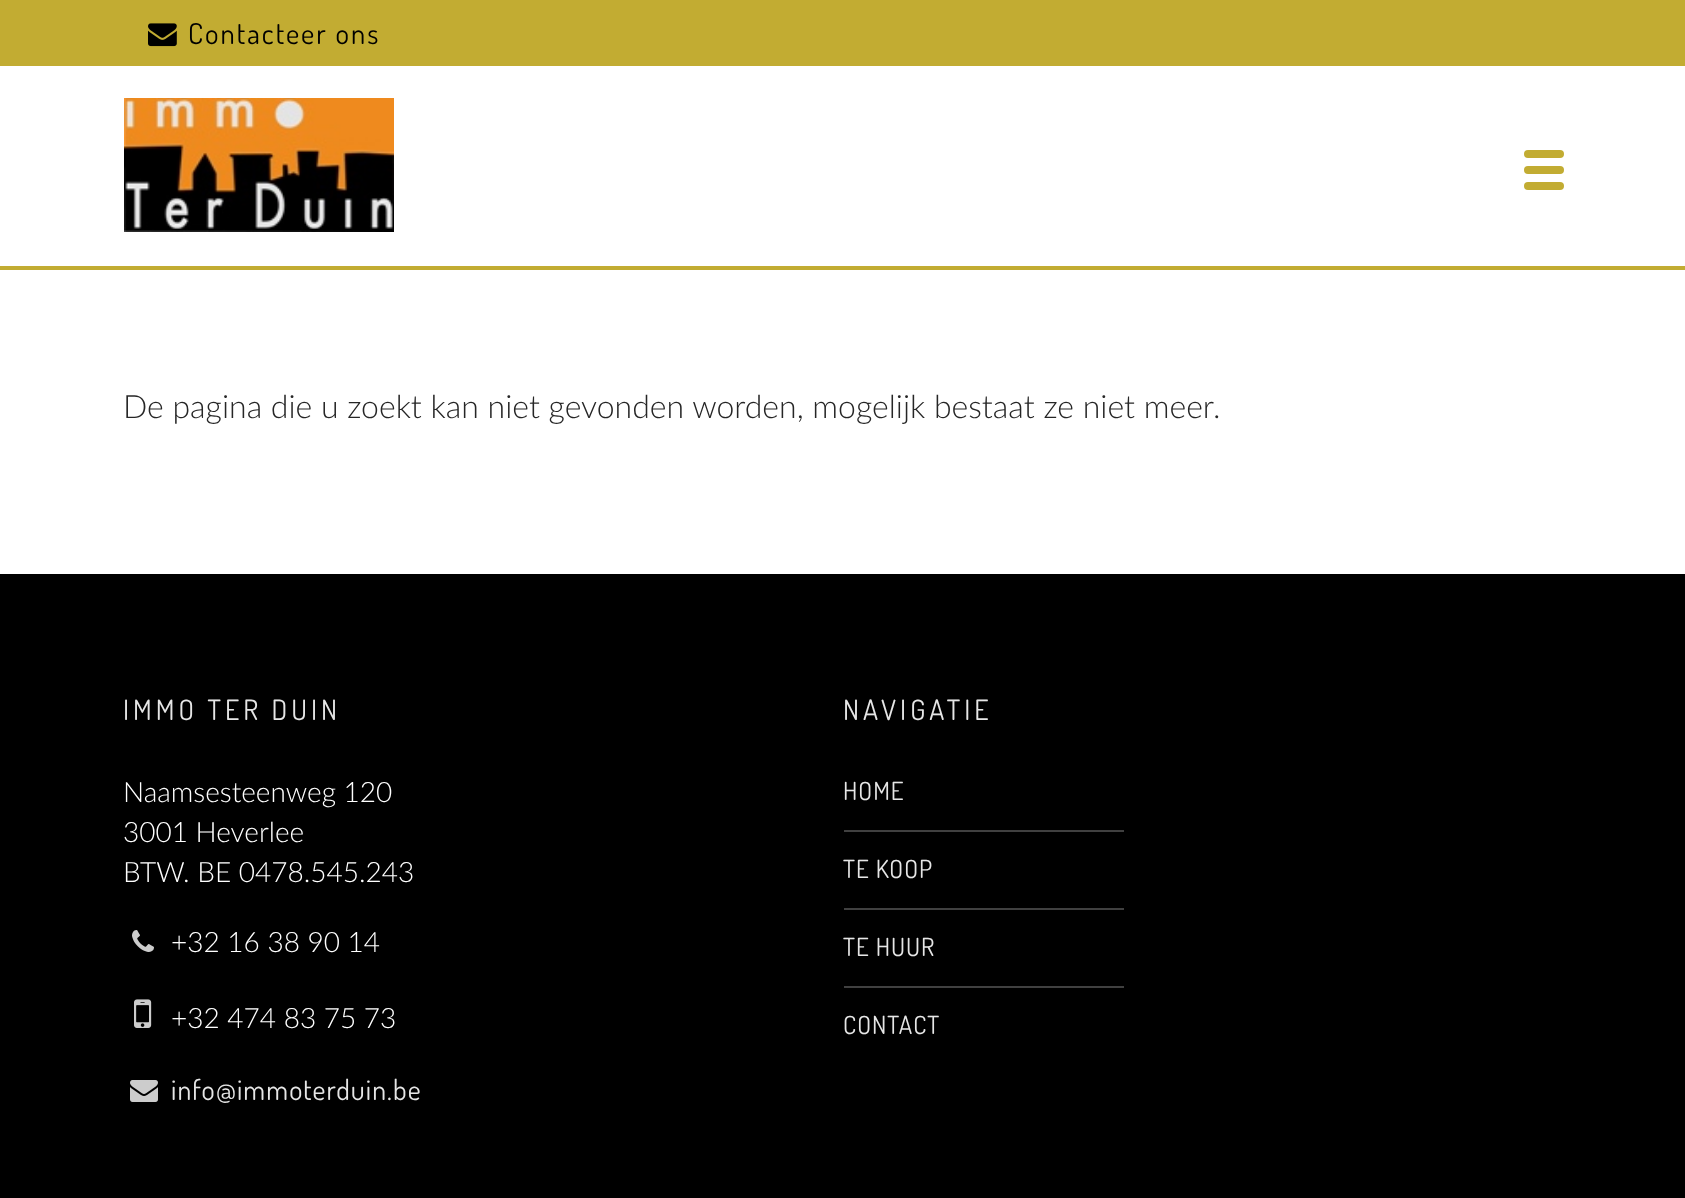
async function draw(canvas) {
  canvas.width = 1685;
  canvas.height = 1198;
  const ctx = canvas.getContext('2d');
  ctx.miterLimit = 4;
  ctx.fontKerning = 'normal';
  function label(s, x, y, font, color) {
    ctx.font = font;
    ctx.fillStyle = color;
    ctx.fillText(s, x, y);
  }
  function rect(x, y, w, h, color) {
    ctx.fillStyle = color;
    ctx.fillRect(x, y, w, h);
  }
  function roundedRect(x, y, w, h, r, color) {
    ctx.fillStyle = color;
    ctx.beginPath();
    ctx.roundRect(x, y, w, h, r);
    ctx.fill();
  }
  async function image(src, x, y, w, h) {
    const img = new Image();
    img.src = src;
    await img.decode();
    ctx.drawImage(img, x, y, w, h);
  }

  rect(0, 0, 1685, 1198, '#fff');
  rect(0, 0, 1685, 66, '#c2ac32');
  await image('assets/img1.png', 148, 23, 29, 24);
  ctx.letterSpacing = '2px';
  label('Contacteer ons', 188, 44, '28.75px Dosis', '#000');
  rect(0, 266, 1685, 4, '#c2ac32');
  await image('assets/img2.png', 124, 98, 270, 134);
  roundedRect(1524, 150, 40, 8, 4, '#c2ac32');
  roundedRect(1524, 166, 40, 8, 4, '#c2ac32');
  roundedRect(1524, 182, 40, 8, 4, '#c2ac32');
  ctx.letterSpacing = '0px';
  label('De pagina die u zoekt kan niet gevonden worden, mogelijk bestaat ze niet meer.', 123, 418, '300 32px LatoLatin', '#262626');
  rect(0, 574, 1685, 624, '#000');
  ctx.letterSpacing = '4px';
  label('IMMO TER DUIN', 123, 720, '28px Dosis', '#e6e6e6');
  ctx.letterSpacing = '0px';
  label('Naamsesteenweg 120', 123, 802, '300 28px LatoLatin', '#fff');
  label('3001 Heverlee', 123, 842, '300 28px LatoLatin', '#fff');
  label('BTW. BE 0478.545.243', 123, 882, '300 28px LatoLatin', '#fff');
  await image('assets/img3.png', 132, 930, 22, 22);
  label('+32 16 38 90 14', 171, 952, '300 28px LatoLatin', '#fff');
  await image('assets/img4.png', 134, 999, 18, 29);
  label('+32 474 83 75 73', 171, 1028, '300 28px LatoLatin', '#fff');
  await image('assets/img5.png', 130, 1080, 28, 22);
  ctx.letterSpacing = '1.1px';
  label('info@immoterduin.be', 171, 1100, '28px Dosis', '#e6e6e6');
  ctx.letterSpacing = '4px';
  label('NAVIGATIE', 843, 720, '28px Dosis', '#e6e6e6');
  rect(844, 830, 280, 2, '#404040');
  ctx.letterSpacing = '1px';
  label('HOME', 843, 800, '25px Dosis', '#e6e6e6');
  rect(844, 908, 280, 2, '#404040');
  label('TE KOOP', 843, 878, '25px Dosis', '#e6e6e6');
  rect(844, 986, 280, 2, '#404040');
  label('TE HUUR', 843, 956, '25px Dosis', '#e6e6e6');
  label('CONTACT', 843, 1034, '25px Dosis', '#e6e6e6');
}

draw(document.querySelector('canvas'));
